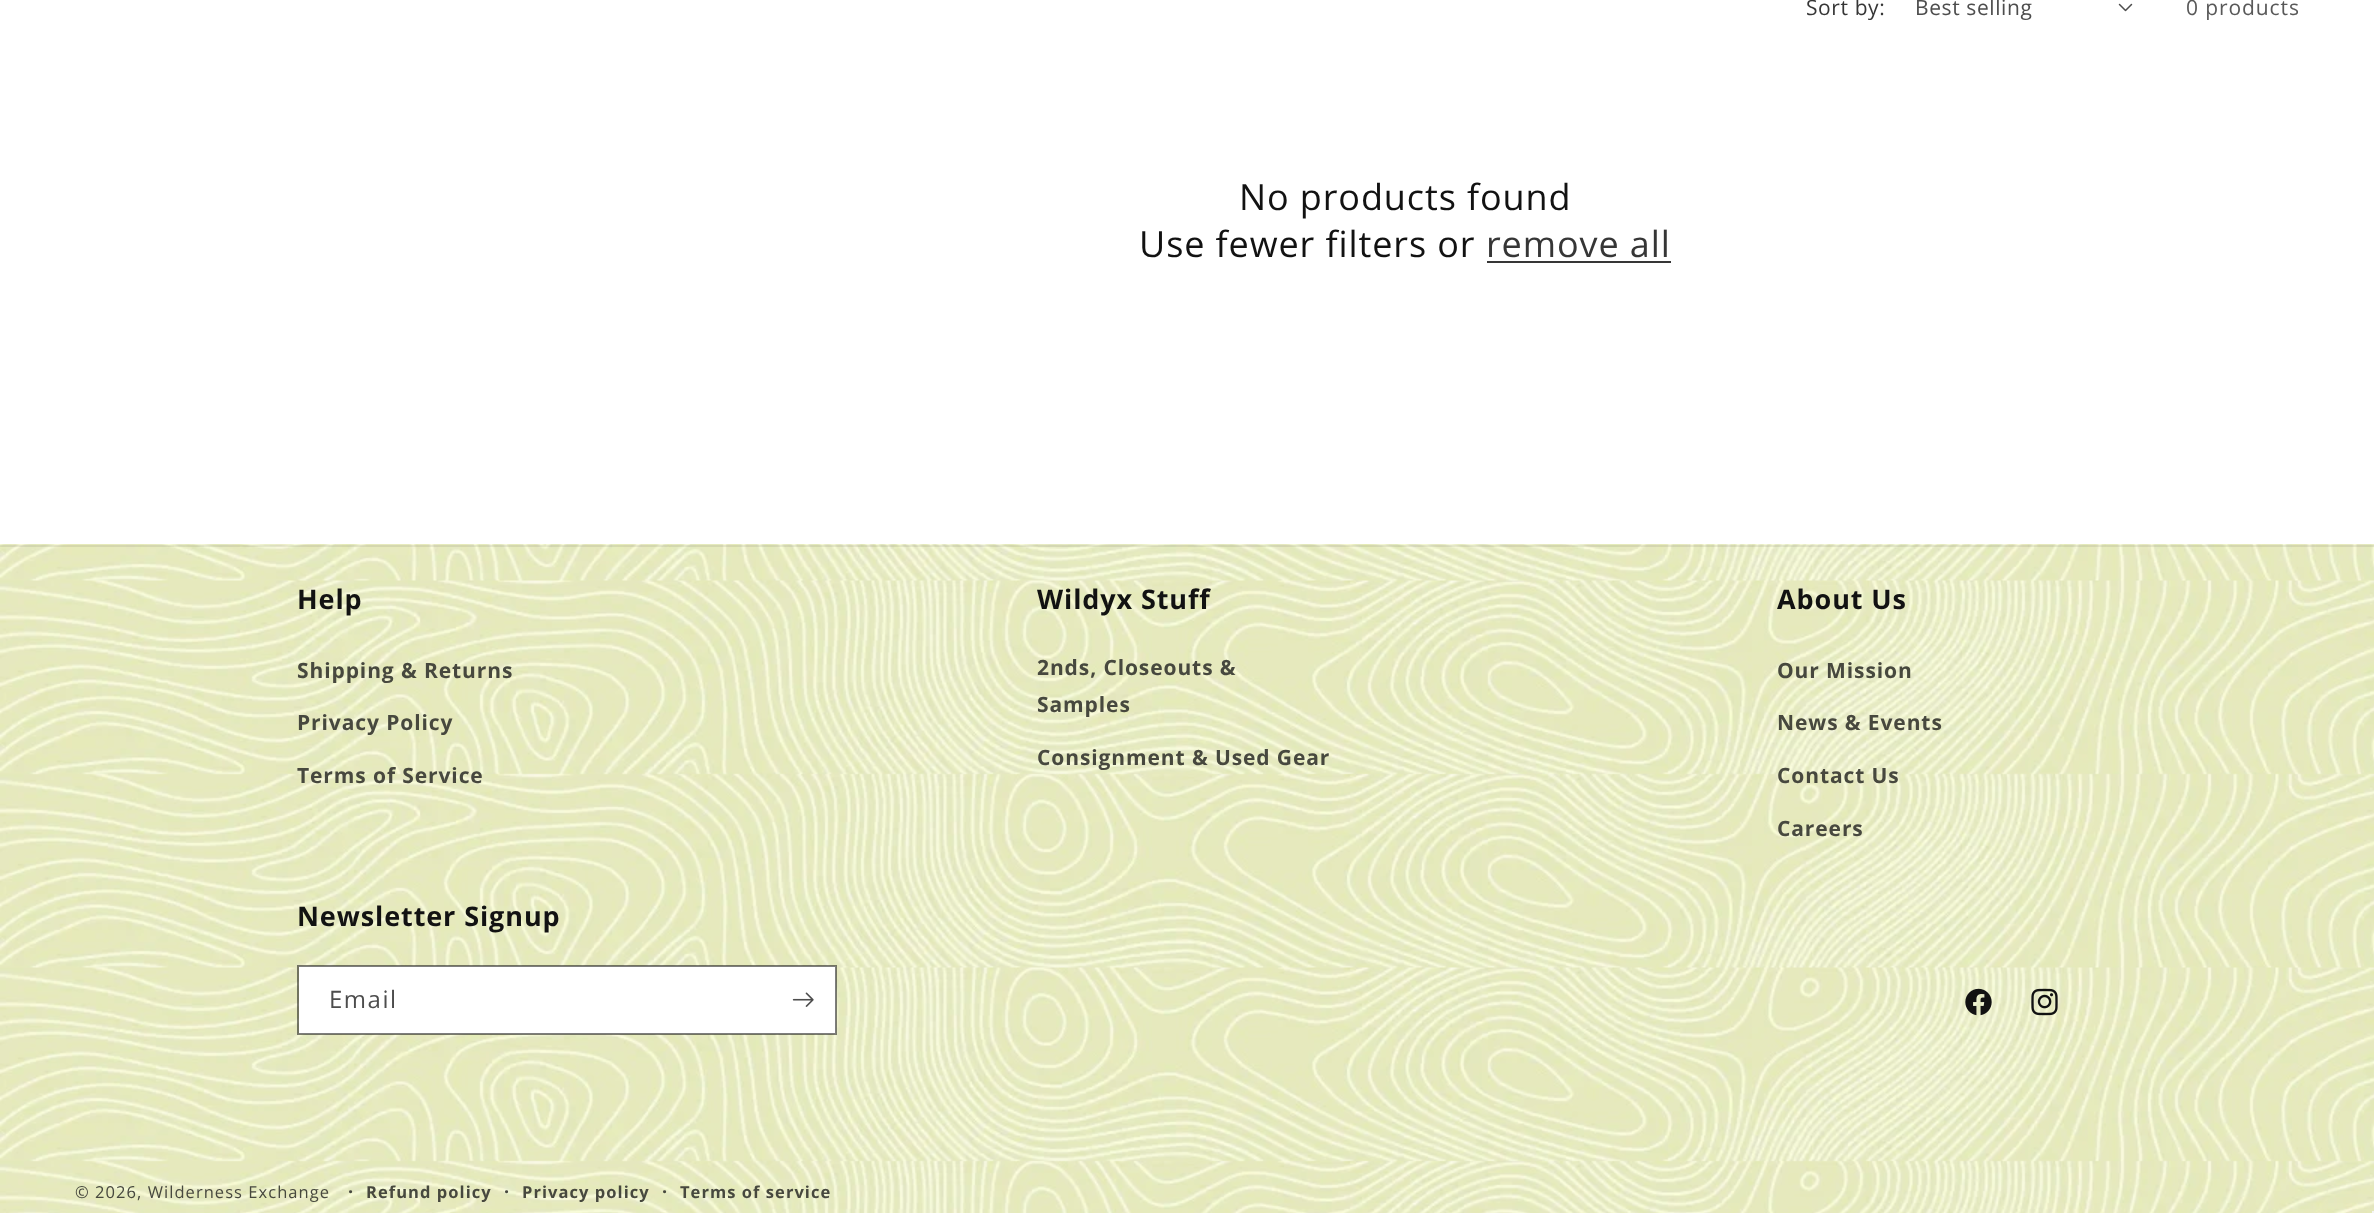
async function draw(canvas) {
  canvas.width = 2374;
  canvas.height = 1213;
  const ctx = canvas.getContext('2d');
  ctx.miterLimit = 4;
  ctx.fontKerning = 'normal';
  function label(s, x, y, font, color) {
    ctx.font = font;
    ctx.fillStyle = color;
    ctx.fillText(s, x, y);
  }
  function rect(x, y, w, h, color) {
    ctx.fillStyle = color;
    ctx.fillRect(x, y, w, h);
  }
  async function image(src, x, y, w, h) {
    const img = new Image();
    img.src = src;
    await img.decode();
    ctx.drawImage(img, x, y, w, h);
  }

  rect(0, 0, 2374, 1213, '#fff');
  ctx.letterSpacing = '0.6px';
  label('Sort by:', 1806, 15, '21px Open Sans', '#363636');
  label('Best selling', 1915, 15, '21px Open Sans', '#4d4d4d');
  await image('assets/img1.png', 2118, 3, 15, 9);
  ctx.letterSpacing = '0.9px';
  label('0 products', 2186, 15, '21px Open Sans', '#595959');
  label('No products found', 1239, 210, '36px Open Sans', '#121212');
  label('Use fewer filters or', 1139, 257, '36px Open Sans', '#121212');
  label('remove all', 1486, 257, '36px Open Sans', '#363636');
  rect(1487, 261, 184, 2, '#363636');
  await image('assets/img2.png', 0, 544, 2374, 669);
  rect(0, 545, 2374, 2, '#12121214');
  label('Help', 297, 609, 'bold 27px Open Sans', '#121212');
  label('Shipping & Returns', 297, 678, 'bold 21px Open Sans', '#47483e');
  label('Privacy Policy', 297, 730, 'bold 21px Open Sans', '#47483e');
  label('Terms of Service', 297, 783, 'bold 21px Open Sans', '#47483e');
  label('Wildyx Stuff', 1037, 609, 'bold 27px Open Sans', '#121212');
  label('2nds, Closeouts &', 1037, 675, 'bold 21px Open Sans', '#47483e');
  label('Samples', 1037, 712, 'bold 21px Open Sans', '#47483e');
  label('Consignment & Used Gear', 1037, 765, 'bold 21px Open Sans', '#47483e');
  label('About Us', 1777, 609, 'bold 27px Open Sans', '#121212');
  label('Our Mission', 1777, 678, 'bold 21px Open Sans', '#47483e');
  label('News & Events', 1777, 730, 'bold 21px Open Sans', '#47483e');
  label('Contact Us', 1777, 783, 'bold 21px Open Sans', '#47483e');
  label('Careers', 1777, 836, 'bold 21px Open Sans', '#47483e');
  label('Newsletter Signup', 297, 926, 'bold 27px Open Sans', '#121212');
  rect(299, 966, 537, 68, '#fff');
  ctx.strokeStyle = '#1212128c';
  ctx.lineWidth = 2;
  ctx.strokeRect(298, 966, 538, 68);
  ctx.letterSpacing = '1.5px';
  label('Email', 329, 1008, '24px Open Sans', '#4d4d4d');
  await image('assets/img3.png', 792, 992, 22, 15);
  await image('assets/img4.png', 1965, 988, 27, 28);
  await image('assets/img5.png', 2031, 988, 27, 28);
  ctx.letterSpacing = '1.05px';
  label('© 2026, Wilderness Exchange', 75, 1198, '16.5px Open Sans', '#47483e');
  label('·', 348, 1198, 'bold 18px Open Sans', '#47483e');
  label('Refund policy', 366, 1198, 'bold 16.5px Open Sans', '#47483e');
  label('·', 504, 1198, 'bold 18px Open Sans', '#47483e');
  label('Privacy policy', 522, 1198, 'bold 16.5px Open Sans', '#47483e');
  label('·', 662, 1198, 'bold 18px Open Sans', '#47483e');
  label('Terms of service', 680, 1198, 'bold 16.5px Open Sans', '#47483e');
  rect(2372, 1211, 2, 2, '#f5f5f5');
}

draw(document.querySelector('canvas'));
